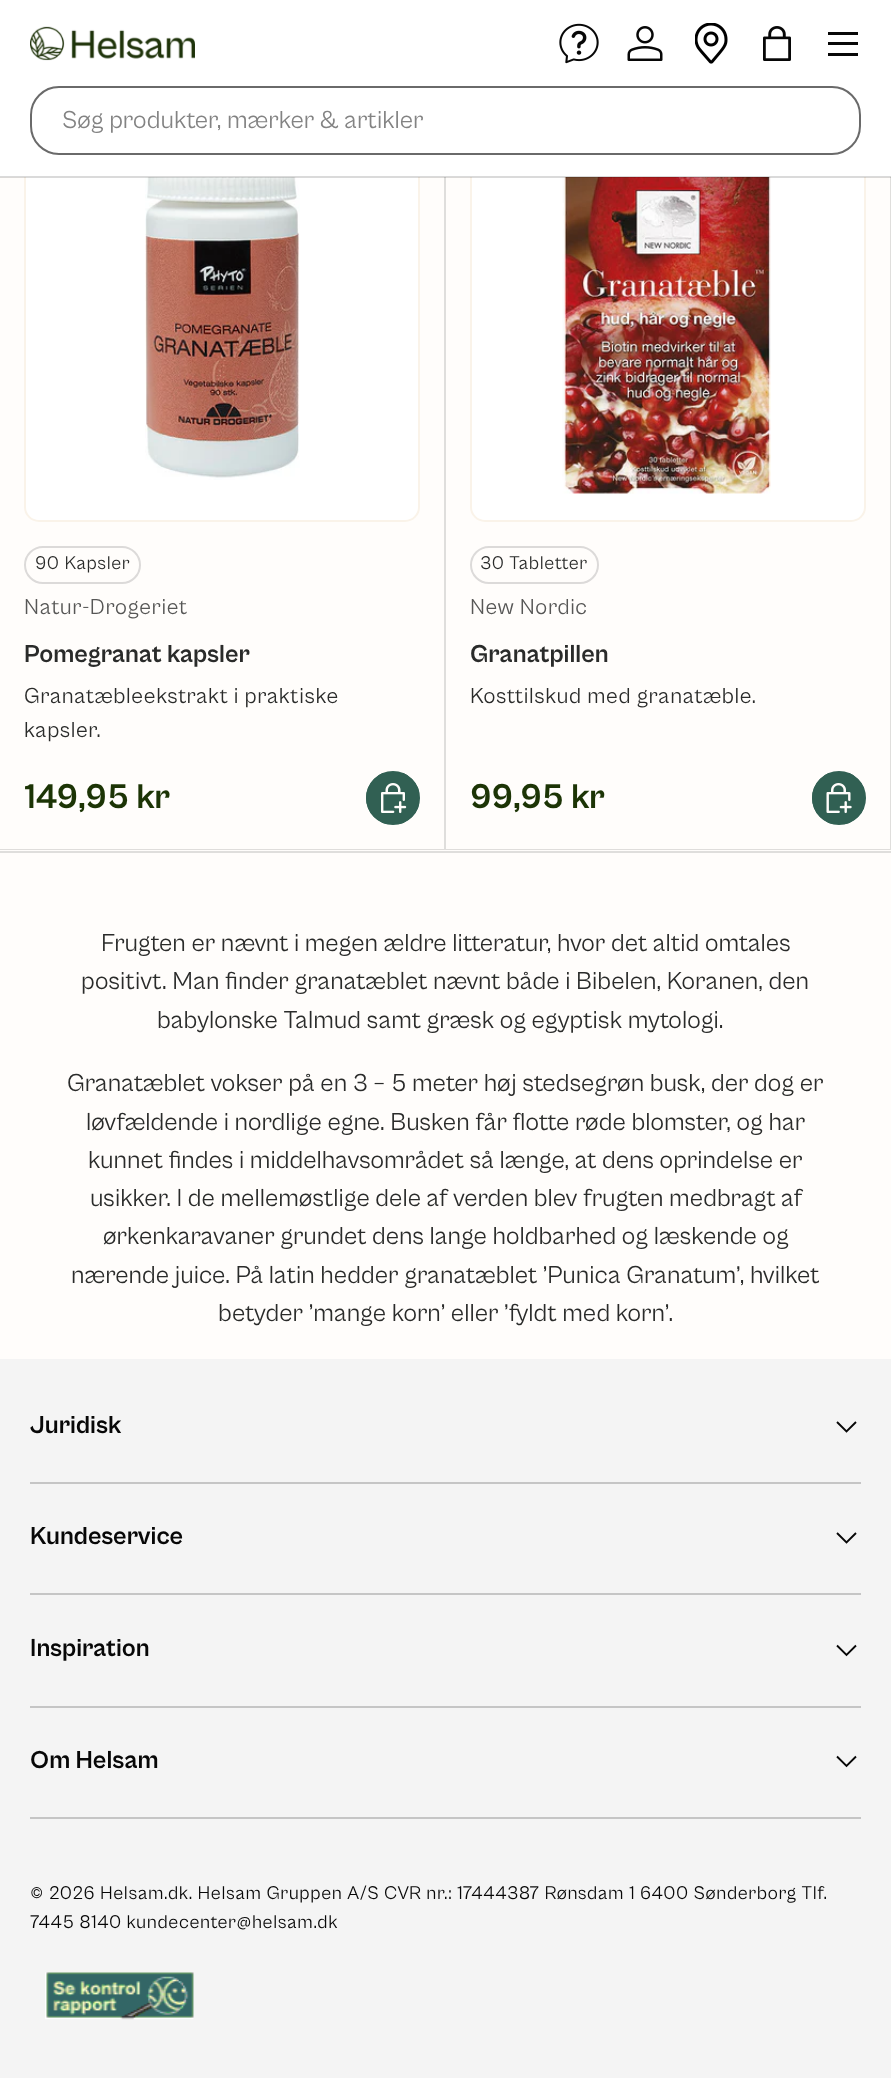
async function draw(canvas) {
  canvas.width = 891;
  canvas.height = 2078;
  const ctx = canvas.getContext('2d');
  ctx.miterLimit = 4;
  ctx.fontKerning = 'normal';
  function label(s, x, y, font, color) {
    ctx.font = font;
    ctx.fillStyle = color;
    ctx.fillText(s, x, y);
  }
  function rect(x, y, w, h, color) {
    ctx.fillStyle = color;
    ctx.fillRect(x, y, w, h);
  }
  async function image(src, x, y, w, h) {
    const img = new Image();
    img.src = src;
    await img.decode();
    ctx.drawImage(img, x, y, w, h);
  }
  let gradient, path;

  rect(0, 0, 891, 2078, '#fffdfb');
  ctx.fillStyle = '#dfdedc';
  path = new Path2D('M446 50V850L444 849V50Z');
  ctx.fill(path);
  ctx.fillStyle = '#fff';
  ctx.beginPath();
  ctx.roundRect(25, 124, 394, 397, 14);
  ctx.fill();
  ctx.strokeStyle = '#faf3e9';
  ctx.lineWidth = 2;
  ctx.stroke();
  ctx.fillStyle = '#dfdedc';
  path = new Path2D('M891 50V850L890 849V50Z');
  ctx.fill(path);
  ctx.fillStyle = '#fff';
  ctx.beginPath();
  ctx.roundRect(471, 124, 394, 397, 14);
  ctx.fill();
  ctx.stroke();
  rect(0, 0, 891, 177, '#fff');
  await image('assets/img6.png', 145, 177, 155, 303);
  await image('assets/img8.png', 562, 177, 209, 317);
  rect(0, 176, 891, 2, '#07070726');
  await image('assets/img1.png', 30, 26, 165, 35);
  await image('assets/img2.png', 559, 23, 40, 41);
  await image('assets/img3.png', 627, 26, 36, 35);
  await image('assets/img4.png', 695, 23, 33, 41);
  await image('assets/img5.png', 763, 26, 28, 35);
  rect(828, 32, 30, 3, '#070707');
  rect(828, 53, 30, 3, '#070707');
  rect(828, 42, 30, 3, '#070707');
  ctx.beginPath();
  ctx.roundRect(31, 87, 829, 67, 28);
  ctx.strokeStyle = '#6a6a6a';
  ctx.stroke();
  label('Søg produkter, mærker & artikler', 62, 128, '25.5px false', '#838383');
  rect(0, 851, 891, 2, '#dfdedc');
  ctx.fillStyle = '#2a2b2a26';
  path = new Path2D('M446 850H0V849H444Z');
  ctx.fill(path);
  ctx.beginPath();
  ctx.roundRect(25, 547, 115, 36, 18);
  ctx.strokeStyle = '#dcdad9';
  ctx.stroke();
  ctx.letterSpacing = '0.6px';
  label('90 Kapsler', 35, 569, '19.1px false', '#2a2b2a');
  label('Natur-Drogeriet', 24, 614, '22.5px false', '#575756');
  ctx.letterSpacing = '0px';
  label('Pomegranat kapsler', 24, 662, 'bold 25.5px false', '#2a2b2a');
  ctx.letterSpacing = '0.6px';
  label('Granatæbleekstrakt i praktiske', 24, 703, '22.5px false', '#2a2b2a');
  label('kapsler.', 24, 737, '22.5px false', '#2a2b2a');
  ctx.letterSpacing = '0px';
  label('149,95 kr', 24, 808, 'bold 35.5px false', '#1c3405');
  ctx.save();
  ctx.beginPath();
  ctx.roundRect(366, 771, 54, 54, 27);
  ctx.clip();
  gradient = ctx.createLinearGradient(264, 779, 420, 817);
  gradient.addColorStop(0.6, '#568174');
  gradient.addColorStop(0.6, '#316053');
  gradient.addColorStop(1, '#316053');
  ctx.fillStyle = gradient;
  ctx.fillRect(366, 773, 53, 51);
  ctx.restore();
  ctx.beginPath();
  ctx.arc(393, 798, 26, 0, 2 * Math.PI);
  ctx.strokeStyle = '#316053';
  ctx.stroke();
  await image('assets/img7.png', 381, 783, 26, 31);
  ctx.fillStyle = '#2a2b2a26';
  path = new Path2D('M891 850H446V849H890Z');
  ctx.fill(path);
  ctx.beginPath();
  ctx.roundRect(471, 547, 127, 36, 18);
  ctx.strokeStyle = '#dcdad9';
  ctx.stroke();
  ctx.letterSpacing = '0.6px';
  label('30 Tabletter', 480, 569, '19.1px false', '#2a2b2a');
  label('New Nordic', 470, 614, '22.5px false', '#575756');
  ctx.letterSpacing = '0px';
  label('Granatpillen', 470, 662, 'bold 25.5px false', '#2a2b2a');
  ctx.letterSpacing = '0.6px';
  label('Kosttilskud med granatæble.', 470, 703, '22.5px false', '#2a2b2a');
  ctx.letterSpacing = '0px';
  label('99,95 kr', 470, 808, 'bold 35.5px false', '#1c3405');
  ctx.save();
  ctx.beginPath();
  ctx.roundRect(812, 771, 54, 54, 27);
  ctx.clip();
  gradient = ctx.createLinearGradient(709, 779, 866, 817);
  gradient.addColorStop(0.6, '#568174');
  gradient.addColorStop(0.6, '#316053');
  gradient.addColorStop(1, '#316053');
  ctx.fillStyle = gradient;
  ctx.fillRect(812, 773, 52, 51);
  ctx.restore();
  ctx.beginPath();
  ctx.arc(839, 798, 26, 0, 2 * Math.PI);
  ctx.strokeStyle = '#316053';
  ctx.stroke();
  await image('assets/img9.png', 826, 783, 26, 31);
  label('Frugten er nævnt i megen ældre litteratur, hvor det altid omtales', 101, 951, '25.5px false', '#2a2b2a');
  label('positivt. Man finder granatæblet nævnt både i Bibelen, Koranen, den', 81, 989, '25.5px false', '#2a2b2a');
  label('babylonske Talmud samt græsk og egyptisk mytologi.', 157, 1028, '25.5px false', '#2a2b2a');
  label('Granatæblet vokser på en 3 – 5 meter høj stedsegrøn busk, der dog er', 67, 1091, '25.5px false', '#2a2b2a');
  label('løvfældende i nordlige egne. Busken får flotte røde blomster, og har', 86, 1130, '25.5px false', '#2a2b2a');
  label('kunnet findes i middelhavsområdet så længe, at dens oprindelse er', 88, 1168, '25.5px false', '#2a2b2a');
  label('usikker. I de mellemøstlige dele af verden blev frugten medbragt af', 90, 1206, '25.5px false', '#2a2b2a');
  label('ørkenkaravaner grundet dens lange holdbarhed og læskende og', 103, 1244, '25.5px false', '#2a2b2a');
  label('nærende juice. På latin hedder granatæblet ’Punica Granatum’, hvilket', 71, 1283, '25.5px false', '#2a2b2a');
  label('betyder ’mange korn’ eller ’fyldt med korn’.', 218, 1321, '25.5px false', '#2a2b2a');
  rect(0, 1359, 891, 719, '#f4f4f4');
  rect(30, 1482, 831, 2, '#c5c5c5');
  label('Juridisk', 30, 1433, 'bold 25.5px false', '#070707');
  path = new Path2D('M856 1422L846.5 1431.5L837 1422');
  ctx.strokeStyle = '#070707';
  ctx.lineWidth = 1.9;
  ctx.stroke(path);
  rect(30, 1593, 831, 2, '#c5c5c5');
  label('Kundeservice', 30, 1544, 'bold 25.5px false', '#070707');
  path = new Path2D('M856 1533L846.5 1542.5L837 1533');
  ctx.stroke(path);
  rect(30, 1706, 831, 2, '#c5c5c5');
  label('Inspiration', 30, 1656, 'bold 25.5px false', '#070707');
  path = new Path2D('M856 1645.5L846.5 1655L837 1645.5');
  ctx.stroke(path);
  rect(30, 1817, 831, 2, '#c5c5c5');
  label('Om Helsam', 30, 1768, 'bold 25.5px false', '#070707');
  path = new Path2D('M856 1756.5L846.5 1766L837 1756.5');
  ctx.stroke(path);
  ctx.letterSpacing = '0.6px';
  label('© 2026 Helsam.dk. Helsam Gruppen A/S CVR nr.: 17444387 Rønsdam 1 6400 Sønderborg Tlf.', 30, 1899, '19.1px false', '#070707');
  label('7445 8140 kundecenter@helsam.dk', 30, 1928, '19.1px false', '#070707');
  await image('assets/img10.png', 45, 1972, 149, 48);
}

draw(document.querySelector('canvas'));
